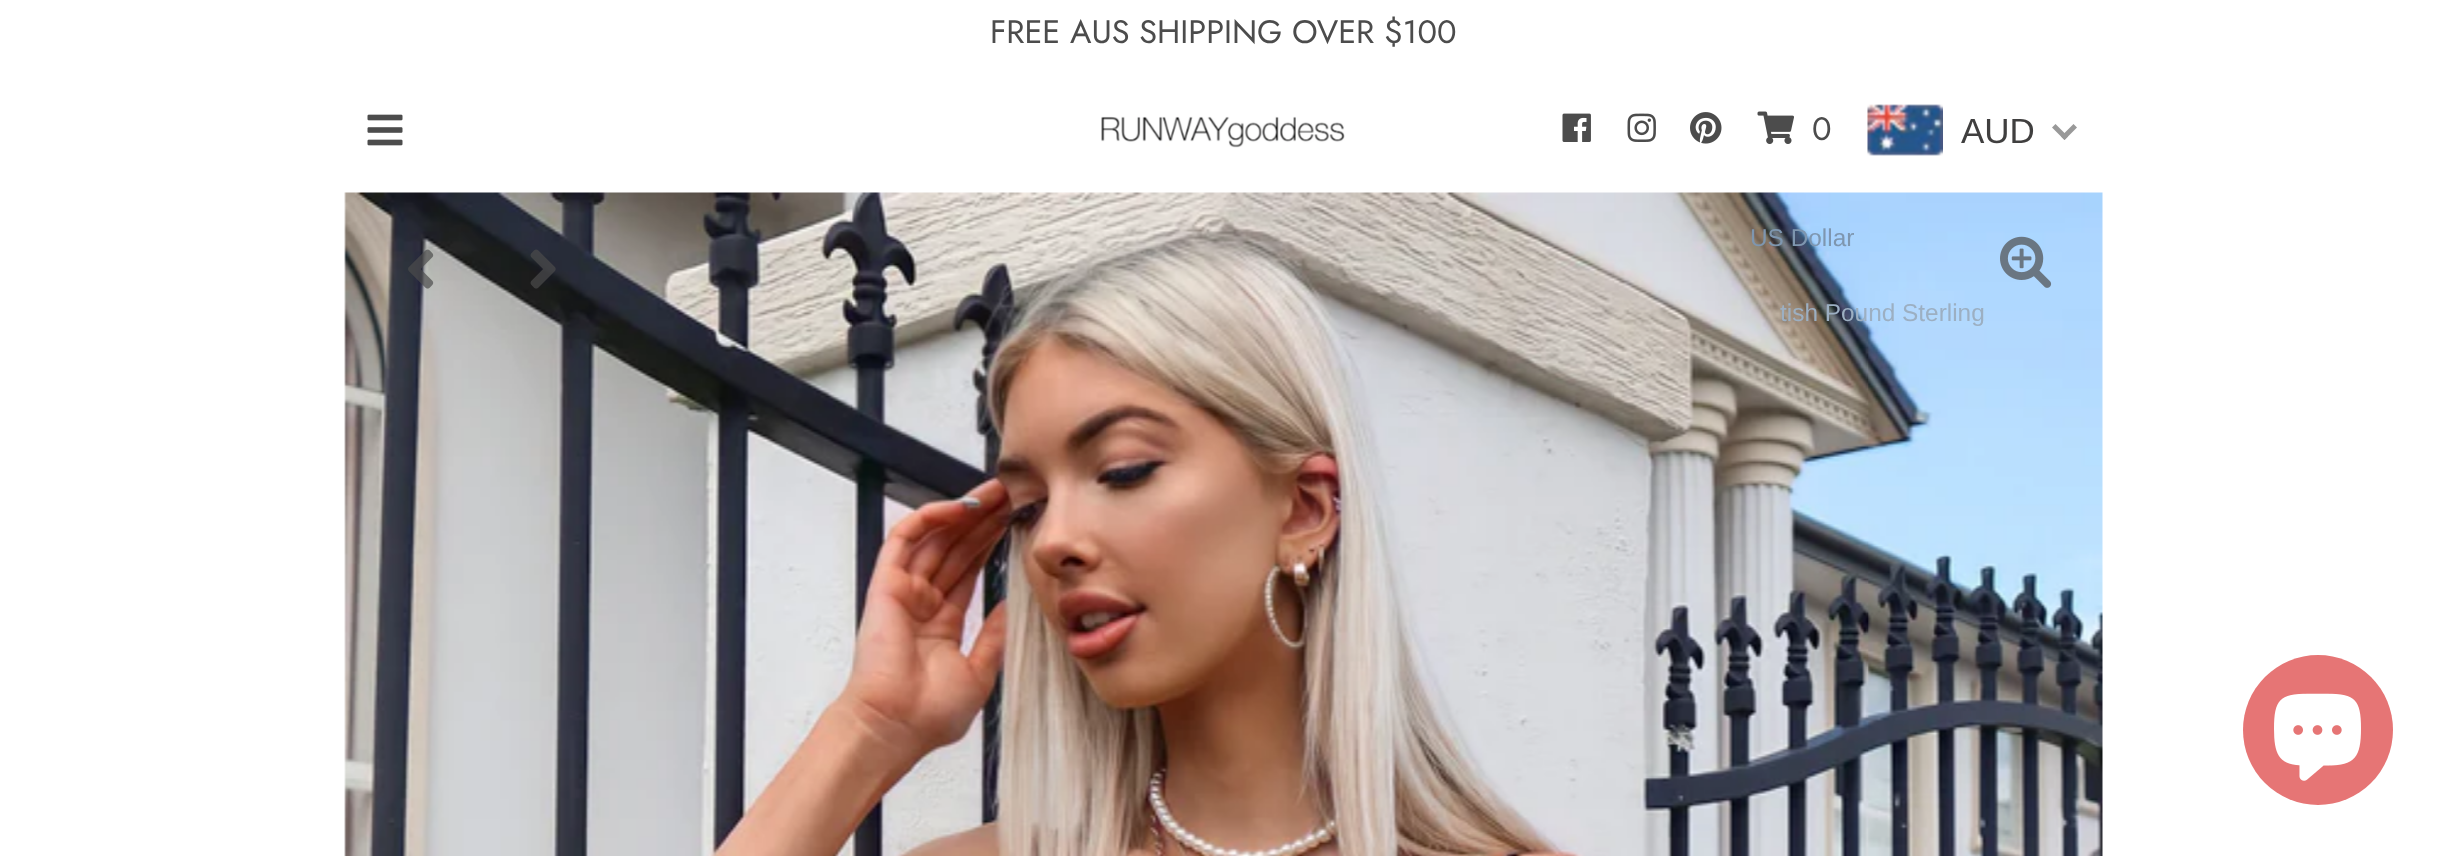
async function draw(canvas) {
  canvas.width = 2447;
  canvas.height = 856;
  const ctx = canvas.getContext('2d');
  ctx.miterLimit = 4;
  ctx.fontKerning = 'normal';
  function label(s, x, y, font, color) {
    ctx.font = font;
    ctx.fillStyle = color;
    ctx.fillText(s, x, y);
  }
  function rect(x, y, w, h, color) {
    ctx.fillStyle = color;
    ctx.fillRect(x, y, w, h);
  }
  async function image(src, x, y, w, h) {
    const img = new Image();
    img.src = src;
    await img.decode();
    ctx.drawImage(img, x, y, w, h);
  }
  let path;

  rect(0, 0, 2447, 856, '#fff');
  label('FREE AUS SHIPPING OVER $100', 990, 43, '32.5px Jost', '#4c4c4c');
  await image('assets/img1.png', 367, 114, 36, 32);
  await image('assets/img2.png', 1101, 116, 244, 32);
  await image('assets/img3.png', 1562, 113, 29, 29);
  await image('assets/img4.png', 1627, 113, 29, 29);
  await image('assets/img5.png', 1690, 112, 32, 32);
  await image('assets/img6.png', 1757, 111, 37, 33);
  label('0', 1812, 140, '32.5px Jost', '#4c4c4c');
  await image('assets/img7.png', 1867, 104, 76, 52);
  label('AUD', 1961, 143, '35px Liberation Sans', '#403f3f');
  ctx.fillStyle = '#999';
  path = new Path2D('M2073.5 124L2077 127.5L2064.5 140L2061 136.5Z');
  ctx.fill(path);
  path = new Path2D('M2055.5 124L2068 136.5L2064.5 140L2052 127.5Z');
  ctx.fill(path);
  await image('assets/img8.png', 344, 192, 1759, 664);
  label('US Dollar', 1750, 246, '24.4px Liberation Sans', '#7e96af');
  label('tish Pound Sterling', 1780, 321, '24.4px Liberation Sans', '#9cafc2');
  await image('assets/img9.png', 2000, 236, 52, 52);
  await image('assets/img10.png', 408, 249, 26, 40);
  await image('assets/img11.png', 530, 249, 26, 40);
  ctx.fillStyle = '#e67575';
  ctx.beginPath();
  ctx.arc(2318, 730, 75, 0, 2 * Math.PI);
  ctx.fill();
  await image('assets/img12.png', 2274, 693, 87, 88);
}

draw(document.querySelector('canvas'));
